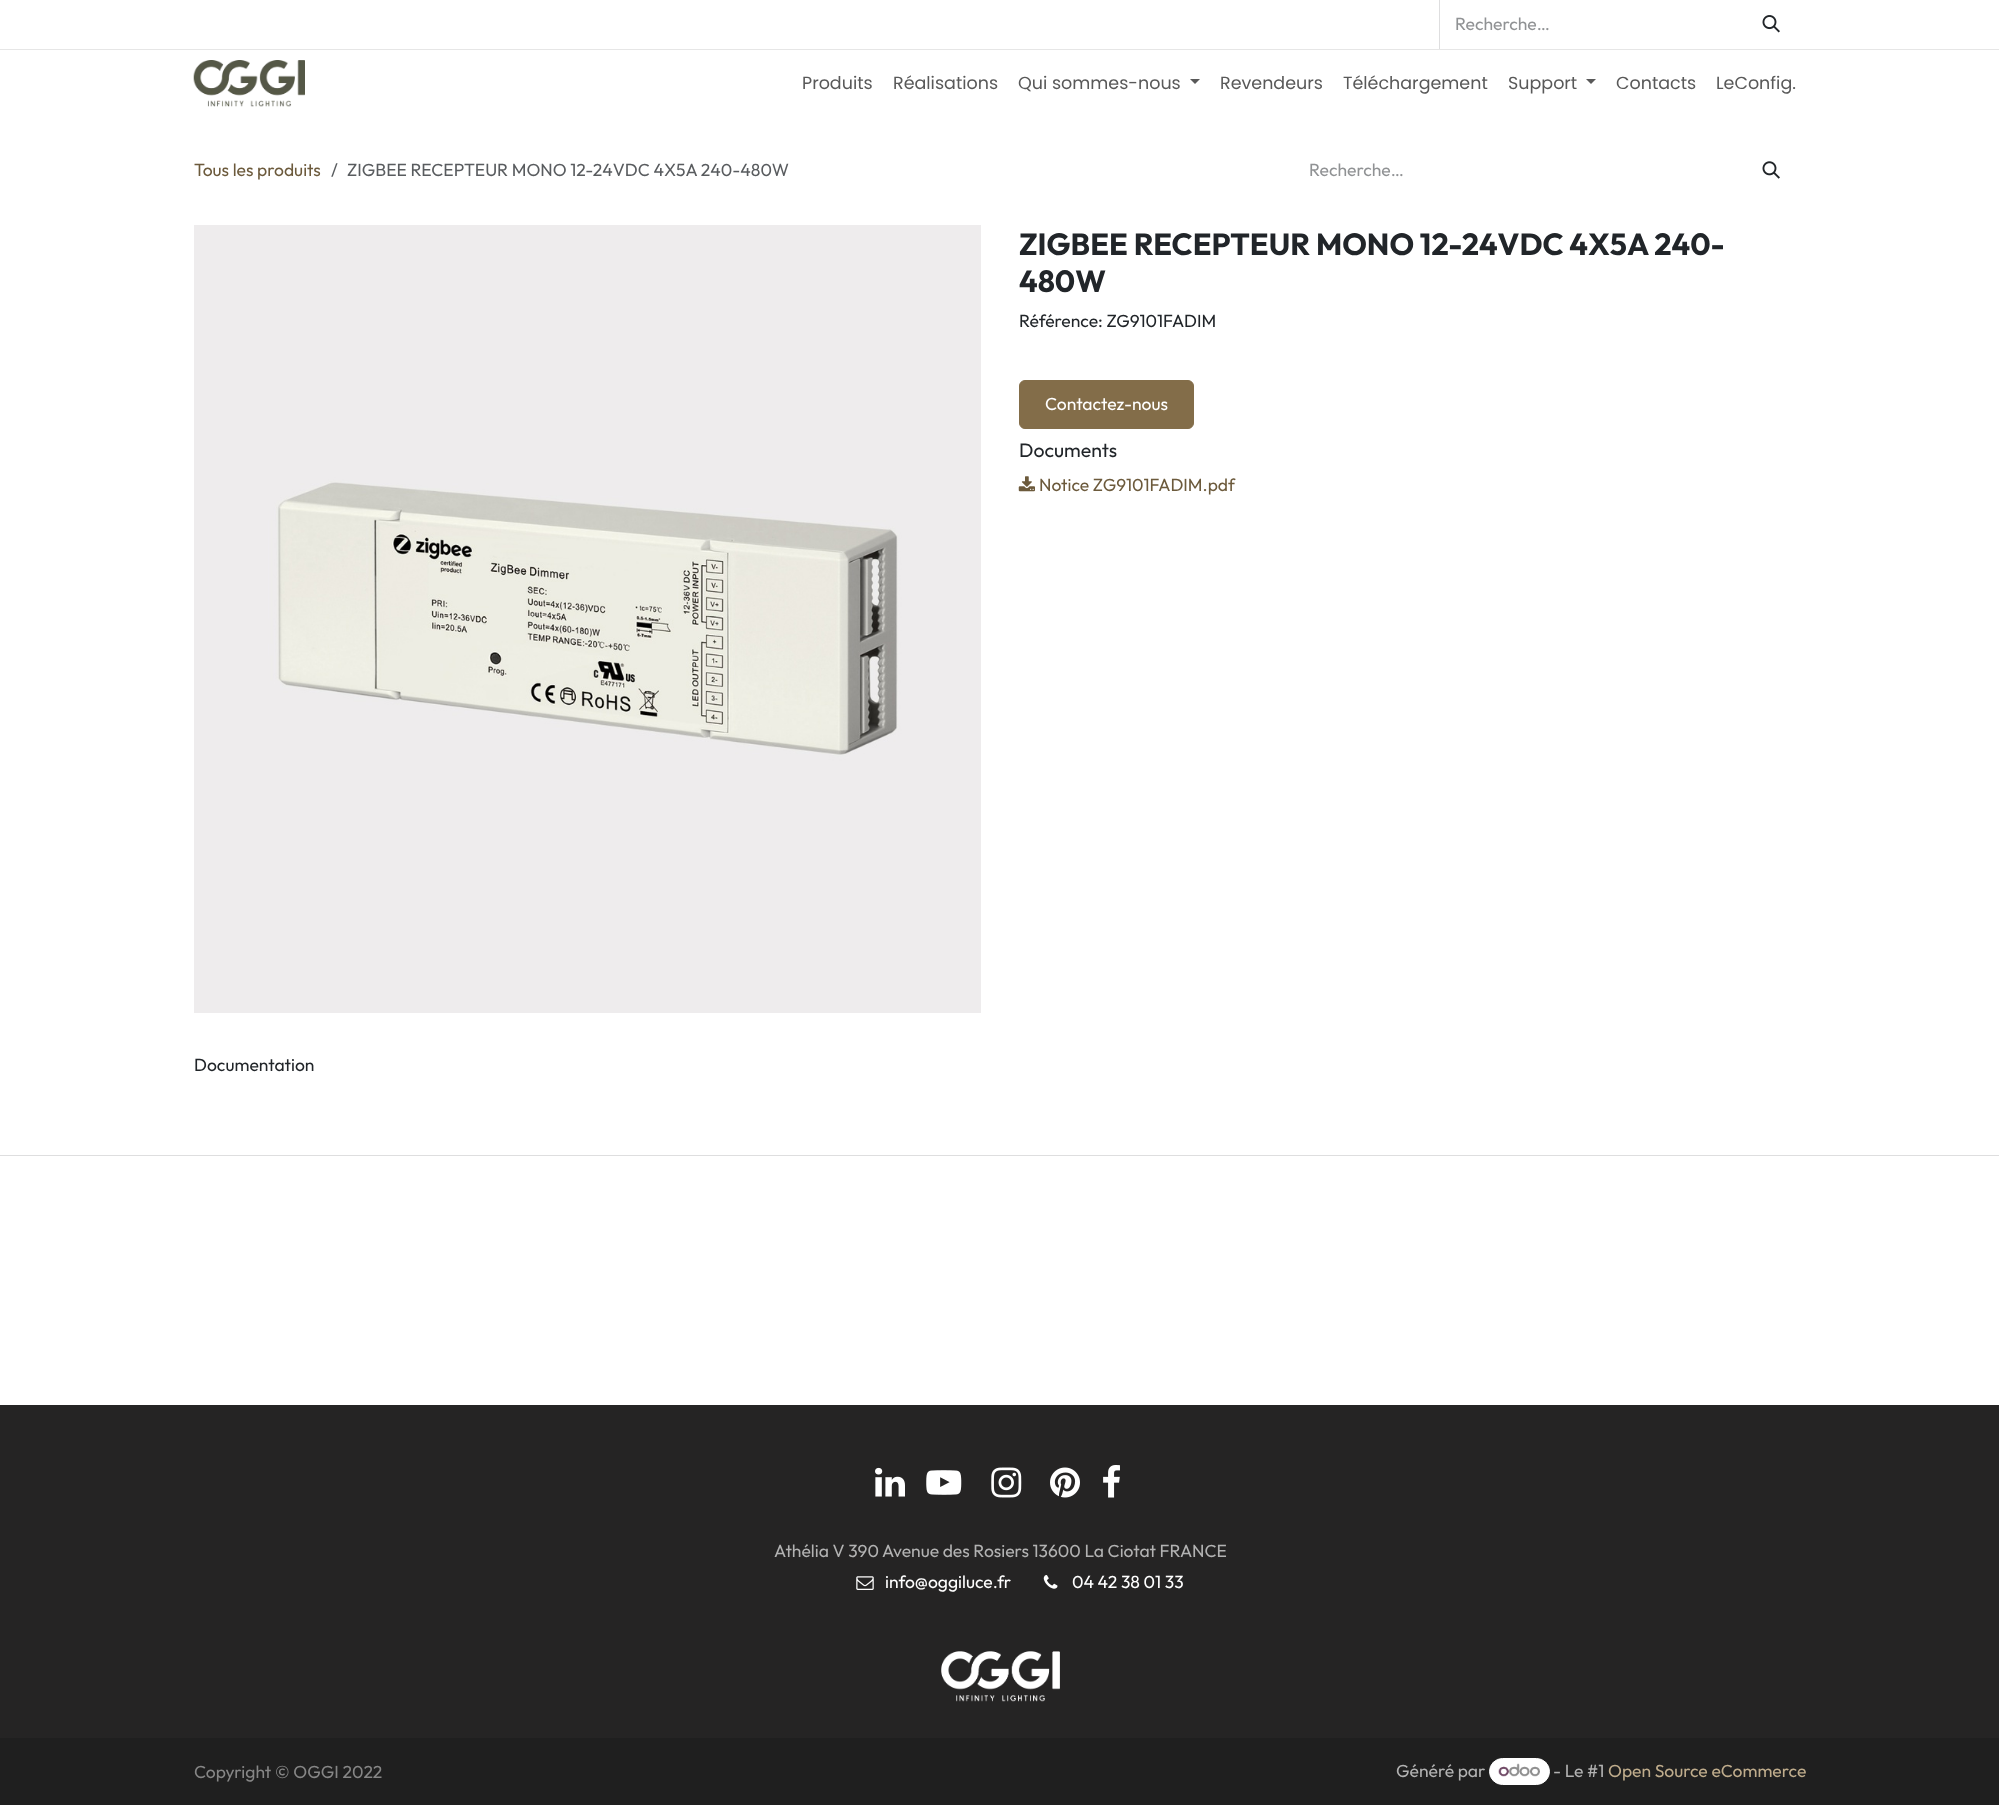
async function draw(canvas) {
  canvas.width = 1999;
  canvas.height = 1805;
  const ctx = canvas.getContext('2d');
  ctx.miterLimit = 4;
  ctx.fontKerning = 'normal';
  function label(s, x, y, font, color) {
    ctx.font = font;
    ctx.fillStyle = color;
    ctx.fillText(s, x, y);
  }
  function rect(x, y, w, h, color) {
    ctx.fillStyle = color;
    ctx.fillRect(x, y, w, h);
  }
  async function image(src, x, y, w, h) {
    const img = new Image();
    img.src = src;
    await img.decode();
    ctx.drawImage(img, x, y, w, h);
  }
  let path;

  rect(0, 0, 1999, 1805, '#fff');
  rect(0, 49, 1999, 1, '#e6e6e6');
  rect(1439, 0, 1, 49, '#dededf');
  label('Recherche…', 1455, 30, '17.5px Outfit', '#909294');
  await image('assets/img1.png', 1762, 15, 18, 18);
  await image('assets/img2.png', 193, 60, 112, 47);
  label('Produits', 802, 89, '17.5px Poppins', '#595959');
  label('Réalisations', 893, 89, '17.5px Poppins', '#595959');
  label('Qui sommes-nous', 1018, 89, '17.5px Poppins', '#595959');
  path = new Path2D('M1190 79H1200L1195 84Z');
  ctx.fill(path);
  label('Revendeurs', 1220, 89, '17.5px Poppins', '#595959');
  label('Téléchargement', 1343, 89, '17.5px Poppins', '#595959');
  label('Support', 1508, 89, '17.5px Poppins', '#595959');
  path = new Path2D('M1586 79H1596L1591 84Z');
  ctx.fill(path);
  label('Contacts', 1616, 89, '17.5px Poppins', '#595959');
  label('LeConfig.', 1716, 89, '17.5px Poppins', '#595959');
  label('Tous les produits', 194, 176, '17.5px Outfit', '#6c5a3c');
  label('/', 331, 176, '17.5px Outfit', '#595c5f');
  label('ZIGBEE RECEPTEUR MONO 12-24VDC 4X5A 240-480W', 347, 176, '17.5px Outfit', '#595c5f');
  label('Recherche…', 1309, 176, '17.5px Outfit', '#909294');
  await image('assets/img3.png', 1762, 161, 18, 18);
  await image('assets/img4.png', 194, 225, 787, 788);
  label('ZIGBEE RECEPTEUR MONO 12-24VDC 4X5A 240-', 1019, 255, 'bold 30.6px Outfit', '#212529');
  label('480W', 1019, 292, 'bold 30.6px Outfit', '#212529');
  label('Référence: ZG9101FADIM', 1019, 327, '17.5px Outfit', '#212529');
  ctx.fillStyle = '#836d49';
  ctx.beginPath();
  ctx.roundRect(1019.5, 380.5, 174, 48, 5.5);
  ctx.fill();
  ctx.strokeStyle = '#836d49';
  ctx.stroke();
  label('Contactez-nous', 1045, 410, '17.5px Outfit', '#fff');
  label('Documents', 1019, 457, '19.5px Outfit', '#212529');
  await image('assets/img5.png', 1018, 476, 17, 16);
  label('Notice ZG9101FADIM.pdf', 1039, 491, '17.5px Outfit', '#6c5a3c');
  label('Documentation', 194, 1071, '17.5px Outfit', '#212529');
  rect(0, 1155, 1999, 1, '#dededf');
  rect(0, 1405, 1999, 333, '#252424');
  await image('assets/img6.png', 875, 1467, 30, 30);
  await image('assets/img7.png', 926, 1470, 36, 25);
  await image('assets/img8.png', 991, 1467, 31, 31);
  await image('assets/img9.png', 1050, 1467, 30, 31);
  await image('assets/img10.png', 1103, 1465, 17, 33);
  label('Athélia V 390 Avenue des Rosiers 13600 La Ciotat FRANCE', 774, 1557, '17.5px Outfit', '#b2b2b2');
  await image('assets/img11.png', 856, 1576, 18, 14);
  label('info@oggiluce.fr', 885, 1588, '17.5px Outfit', '#fff');
  await image('assets/img12.png', 1043, 1575, 15, 14);
  label('04 42 38 01 33', 1072, 1588, '17.5px Outfit', '#fff');
  await image('assets/img13.png', 941, 1651, 119, 51);
  rect(0, 1738, 1999, 67, '#1f1f1f');
  label('Copyright © OGGI 2022', 194, 1778, '17.5px Outfit', '#868686');
  label('Généré par', 1396, 1777, '17.5px Outfit', '#b2b2b2');
  ctx.fillStyle = '#fff';
  ctx.beginPath();
  ctx.roundRect(1489.5, 1758.5, 60, 26, 13);
  ctx.fill();
  ctx.strokeStyle = '#fff';
  ctx.stroke();
  await image('assets/img14.png', 1498, 1763, 42, 14);
  label('- Le #1', 1553, 1777, '17.5px Outfit', '#b2b2b2');
  label('Open Source eCommerce', 1608, 1777, '17.5px Outfit', '#bfac8c');
}

draw(document.querySelector('canvas'));
